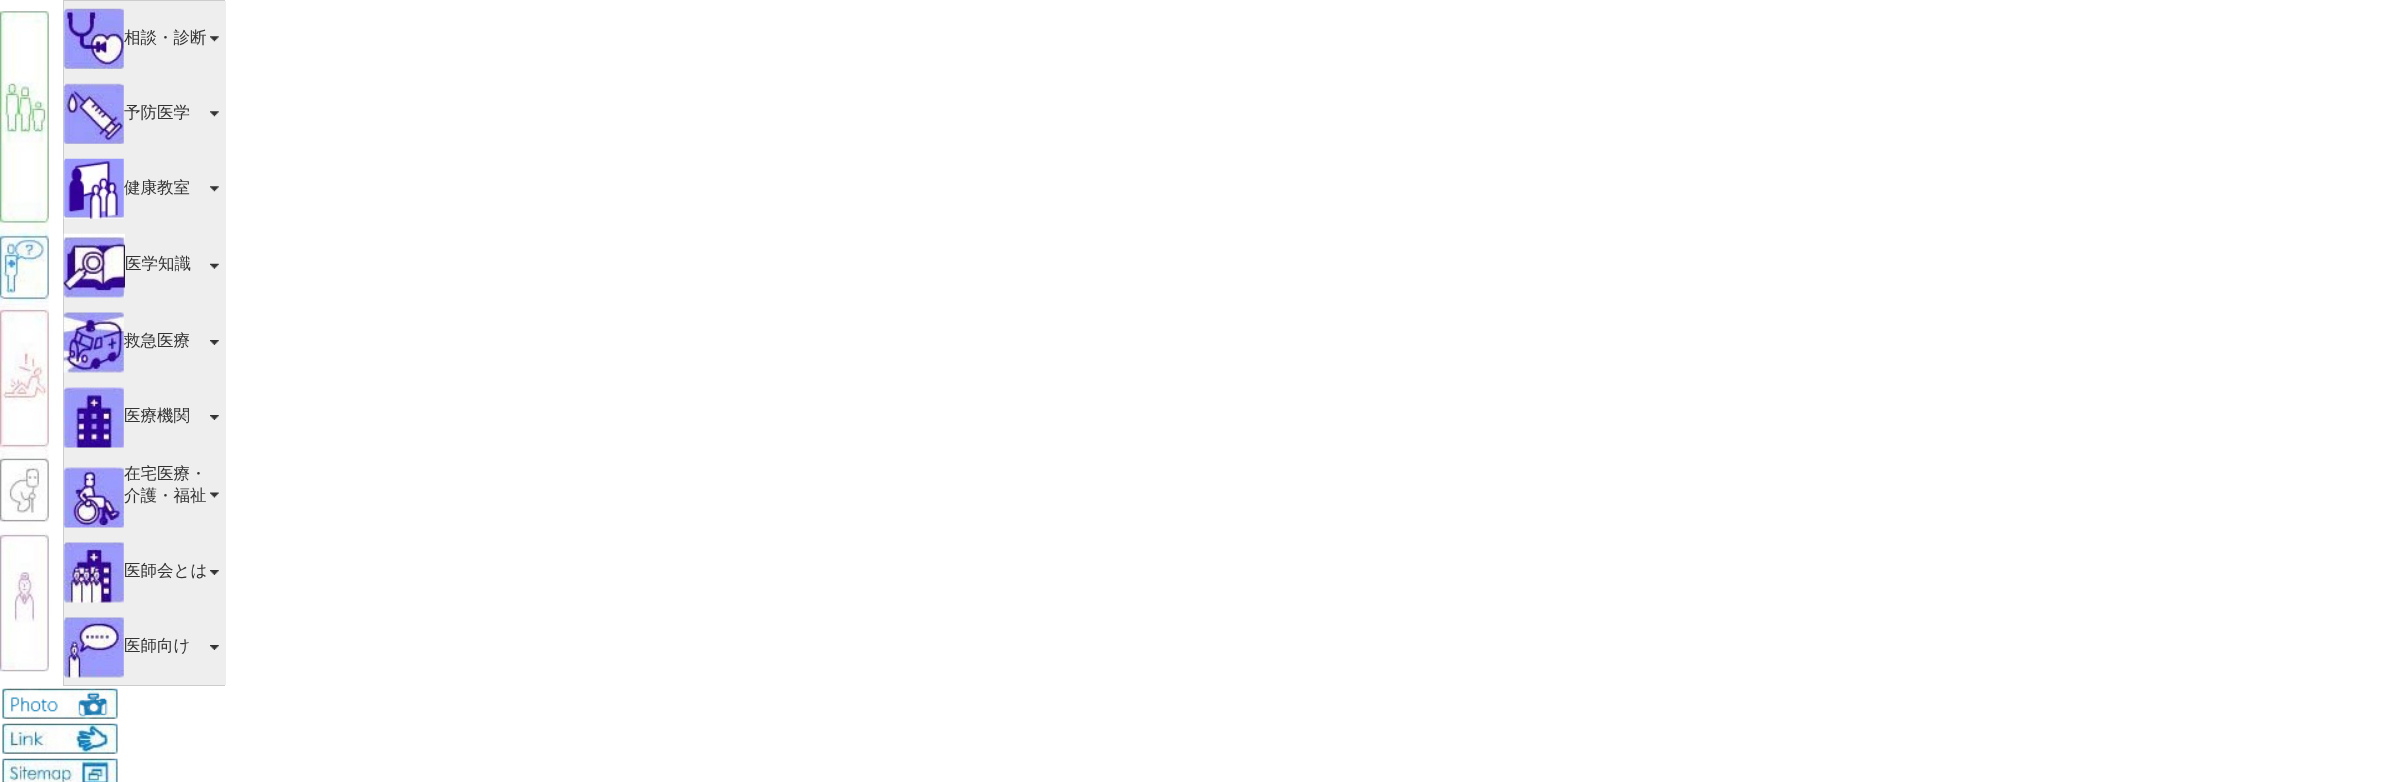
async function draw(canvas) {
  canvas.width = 2408;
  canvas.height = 782;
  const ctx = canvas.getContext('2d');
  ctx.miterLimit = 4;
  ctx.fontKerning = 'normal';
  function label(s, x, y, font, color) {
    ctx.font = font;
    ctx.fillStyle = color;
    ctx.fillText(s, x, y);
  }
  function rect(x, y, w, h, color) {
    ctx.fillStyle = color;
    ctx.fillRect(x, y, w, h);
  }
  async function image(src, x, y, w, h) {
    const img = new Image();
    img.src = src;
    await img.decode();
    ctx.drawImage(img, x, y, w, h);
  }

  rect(0, 0, 2408, 782, '#fff');
  await image('assets/img1.png', 0, 11, 49, 661);
  ctx.strokeStyle = '#ccc';
  ctx.strokeRect(63.5, 0.5, 161, 685);
  rect(64, 1, 162, 684, '#eee');
  await image('assets/img2.png', 210, 36, 9, 6);
  await image('assets/img3.png', 63, 8, 61, 61);
  label('相談・診断', 124, 43, '500 16.5px WenQuanYi Zen Hei', '#333');
  await image('assets/img2.png', 210, 111, 9, 6);
  await image('assets/img4.png', 63, 83, 61, 61);
  label('予防医学', 124, 118, '500 16.5px WenQuanYi Zen Hei', '#333');
  await image('assets/img2.png', 210, 186, 9, 6);
  await image('assets/img5.png', 63, 158, 61, 61);
  label('健康教室', 124, 193, '500 16.5px WenQuanYi Zen Hei', '#333');
  await image('assets/img6.png', 210, 263, 9, 6);
  await image('assets/img7.png', 63, 233, 62, 65);
  label('医学知識', 125, 269, '500 16.5px WenQuanYi Zen Hei', '#333');
  await image('assets/img8.png', 210, 340, 9, 5);
  await image('assets/img9.png', 63, 312, 61, 61);
  label('救急医療', 124, 346, '500 16.5px WenQuanYi Zen Hei', '#333');
  await image('assets/img8.png', 210, 415, 9, 5);
  await image('assets/img10.png', 63, 387, 61, 61);
  label('医療機関', 124, 421, '500 16.5px WenQuanYi Zen Hei', '#333');
  await image('assets/img11.png', 210, 492, 9, 6);
  await image('assets/img12.png', 63, 467, 61, 61);
  label('在宅医療・', 124, 479, '500 16.5px WenQuanYi Zen Hei', '#333');
  label('介護・福祉', 124, 501, '500 16.5px WenQuanYi Zen Hei', '#333');
  await image('assets/img8.png', 210, 570, 9, 5);
  await image('assets/img13.png', 63, 542, 61, 61);
  label('医師会とは', 124, 576, '500 16.5px WenQuanYi Zen Hei', '#333');
  await image('assets/img8.png', 210, 645, 9, 5);
  await image('assets/img14.png', 63, 617, 61, 61);
  label('医師向け', 124, 651, '500 16.5px WenQuanYi Zen Hei', '#333');
  await image('assets/img15.png', 2, 688, 116, 31);
  await image('assets/img16.png', 2, 723, 116, 31);
  await image('assets/img17.png', 2, 758, 116, 24);
}

draw(document.querySelector('canvas'));
